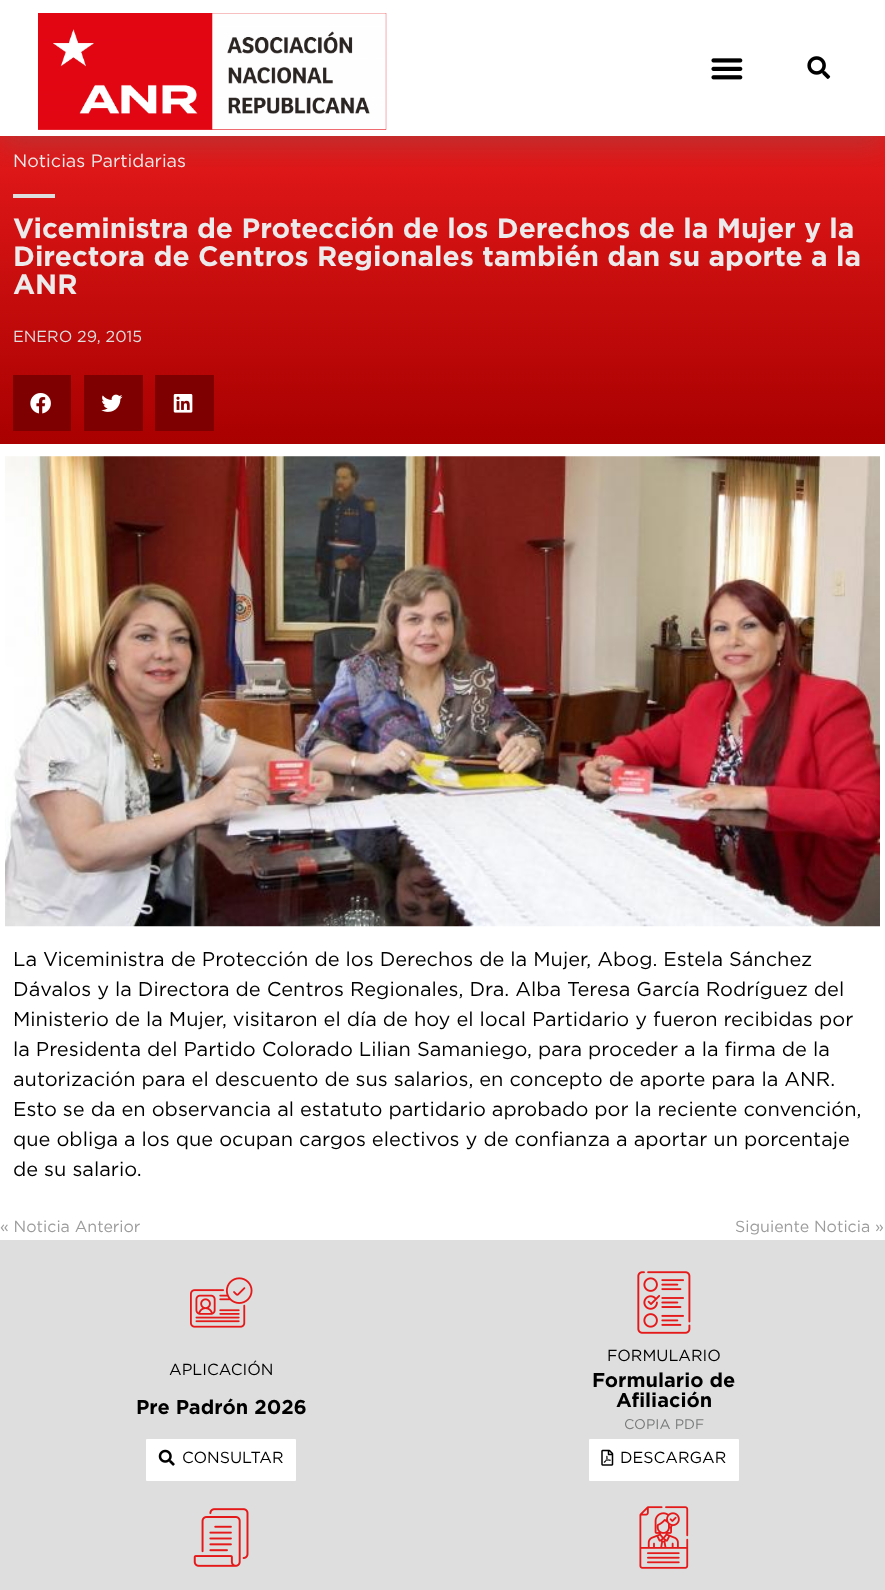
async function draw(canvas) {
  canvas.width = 885;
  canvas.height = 1590;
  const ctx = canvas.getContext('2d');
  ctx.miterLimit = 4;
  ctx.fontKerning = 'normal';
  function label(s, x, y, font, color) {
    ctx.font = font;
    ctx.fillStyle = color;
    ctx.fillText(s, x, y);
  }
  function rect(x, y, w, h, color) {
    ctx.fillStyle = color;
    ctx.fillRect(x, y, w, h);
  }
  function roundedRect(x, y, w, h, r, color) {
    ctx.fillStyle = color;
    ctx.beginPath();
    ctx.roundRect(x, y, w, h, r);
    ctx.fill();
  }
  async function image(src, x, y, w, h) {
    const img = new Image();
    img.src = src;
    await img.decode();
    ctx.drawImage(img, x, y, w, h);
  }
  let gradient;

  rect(0, 0, 885, 1590, '#fff');
  gradient = ctx.createLinearGradient(443, 136, 443, 444);
  gradient.addColorStop(0, '#e4191a');
  gradient.addColorStop(1, '#a90000');
  ctx.fillStyle = gradient;
  ctx.fillRect(0, 136, 885, 308);
  ctx.save();
  ctx.beginPath();
  ctx.rect(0, 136, 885, 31);
  ctx.clip();
  ctx.fillStyle = '#63636354';
  ctx.filter = 'blur(14.5px)';
  ctx.beginPath();
  ctx.rect(0, 9, 885, 136);
  ctx.fill();
  ctx.filter = 'none';
  ctx.restore();
  await image('assets/img1.png', 38, 13, 349, 117);
  await image('assets/img2.png', 711, 58, 32, 22);
  await image('assets/img3.png', 807, 56, 24, 23);
  label('Noticias Partidarias', 13, 167, '18px Gotham', '#eceaea');
  rect(13, 194, 42, 4, '#dedede');
  label('Viceministra de Protección de los Derechos de la Mujer y la', 13, 238, 'bold 28px Gotham', '#eceaea');
  label('Directora de Centros Regionales también dan su aporte a la', 13, 266, 'bold 28px Gotham', '#eceaea');
  label('ANR', 13, 294, 'bold 28px Gotham', '#eceaea');
  label('ENERO 29, 2015', 13, 342, '16px Gotham', '#dedede');
  ctx.strokeStyle = '#7f0000';
  ctx.lineWidth = 3;
  ctx.strokeRect(14.5, 376.5, 55, 53);
  rect(16, 378, 52, 50, '#7f0000');
  await image('assets/img4.png', 30, 393, 21, 21);
  ctx.strokeRect(85.5, 376.5, 56, 53);
  rect(87, 378, 53, 50, '#7f0000');
  await image('assets/img5.png', 101, 394, 22, 18);
  ctx.strokeRect(156.5, 376.5, 56, 53);
  rect(158, 378, 53, 50, '#7f0000');
  await image('assets/img6.png', 173, 394, 20, 19);
  await image('assets/img7.png', 5, 456, 875, 471);
  label('La Viceministra de Protección de los Derechos de la Mujer, Abog. Estela Sánchez', 13, 966, '20px Gotham', '#000');
  label('Dávalos y la Directora de Centros Regionales, Dra. Alba Teresa García Rodríguez del', 13, 996, '20px Gotham', '#000');
  label('Ministerio de la Mujer, visitaron el día de hoy el local Partidario y fueron recibidas por', 13, 1026, '20px Gotham', '#000');
  label('la Presidenta del Partido Colorado Lilian Samaniego, para proceder a la firma de la', 13, 1056, '20px Gotham', '#000');
  label('autorización para el descuento de sus salarios, en concepto de aporte para la ANR.', 13, 1086, '20px Gotham', '#000');
  label('Esto se da en observancia al estatuto partidario aprobado por la reciente convención,', 13, 1116, '20px Gotham', '#000');
  label('que obliga a los que ocupan cargos electivos y de confianza a aportar un porcentaje', 13, 1146, '20px Gotham', '#000');
  label('de su salario.', 13, 1176, '20px Gotham', '#000');
  label('« Noticia Anterior', 0, 1232, '16px Gotham', '#9c9c9c');
  label('Siguiente Noticia »', 735, 1232, '16px Gotham', '#9c9c9c');
  rect(0, 1240, 885, 350, '#dedede');
  await image('assets/img8.png', 190, 1277, 63, 51);
  label('APLICACIÓN', 169, 1375, '16px Gotham', '#000');
  label('Pre Padrón 2026', 136, 1414, 'bold 20px Gotham', '#000');
  roundedRect(146, 1439, 150, 42, 1, '#fff');
  await image('assets/img9.png', 158, 1449, 17, 17);
  label('CONSULTAR', 182, 1463, '16px Gotham', '#000');
  await image('assets/img10.png', 637, 1271, 54, 63);
  label('FORMULARIO', 607, 1361, '16px Gotham', '#000');
  label('Formulario de', 592, 1387, 'bold 20px Gotham', '#000');
  label('Afiliación', 616, 1407, 'bold 20px Gotham', '#000');
  label('COPIA PDF', 624, 1429, '14px Gotham', '#787979');
  roundedRect(589, 1439, 150, 42, 1, '#fff');
  await image('assets/img11.png', 601, 1449, 13, 17);
  label('DESCARGAR', 620, 1463, '16px Gotham', '#000');
  await image('assets/img12.png', 193, 1508, 56, 59);
  await image('assets/img13.png', 639, 1506, 50, 63);
}

draw(document.querySelector('canvas'));
